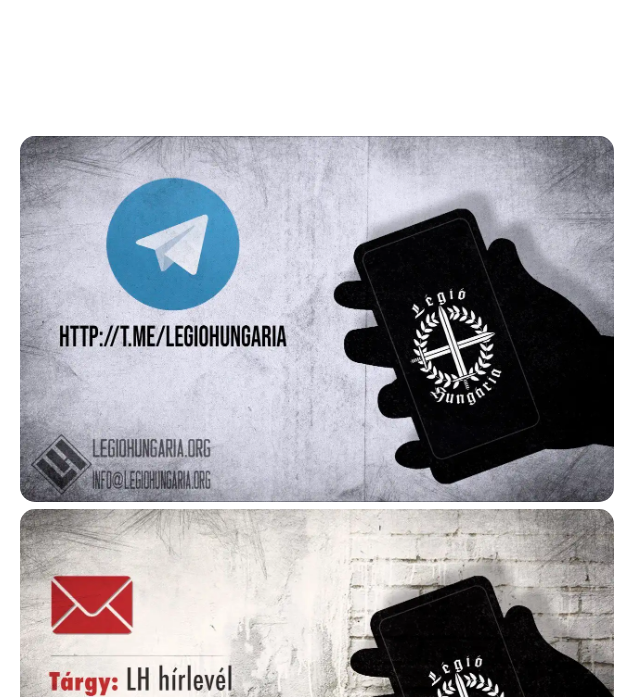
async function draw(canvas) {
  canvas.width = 634;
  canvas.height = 697;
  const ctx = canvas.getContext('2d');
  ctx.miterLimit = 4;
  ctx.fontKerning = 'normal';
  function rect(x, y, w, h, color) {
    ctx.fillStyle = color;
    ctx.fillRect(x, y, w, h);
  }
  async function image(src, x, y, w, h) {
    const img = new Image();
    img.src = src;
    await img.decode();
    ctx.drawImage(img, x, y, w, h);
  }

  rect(0, 0, 634, 697, '#fff');
  await image('assets/img1.png', 20, 136, 594, 366);
  await image('assets/img2.png', 20, 509, 594, 188);
}

draw(document.querySelector('canvas'));
